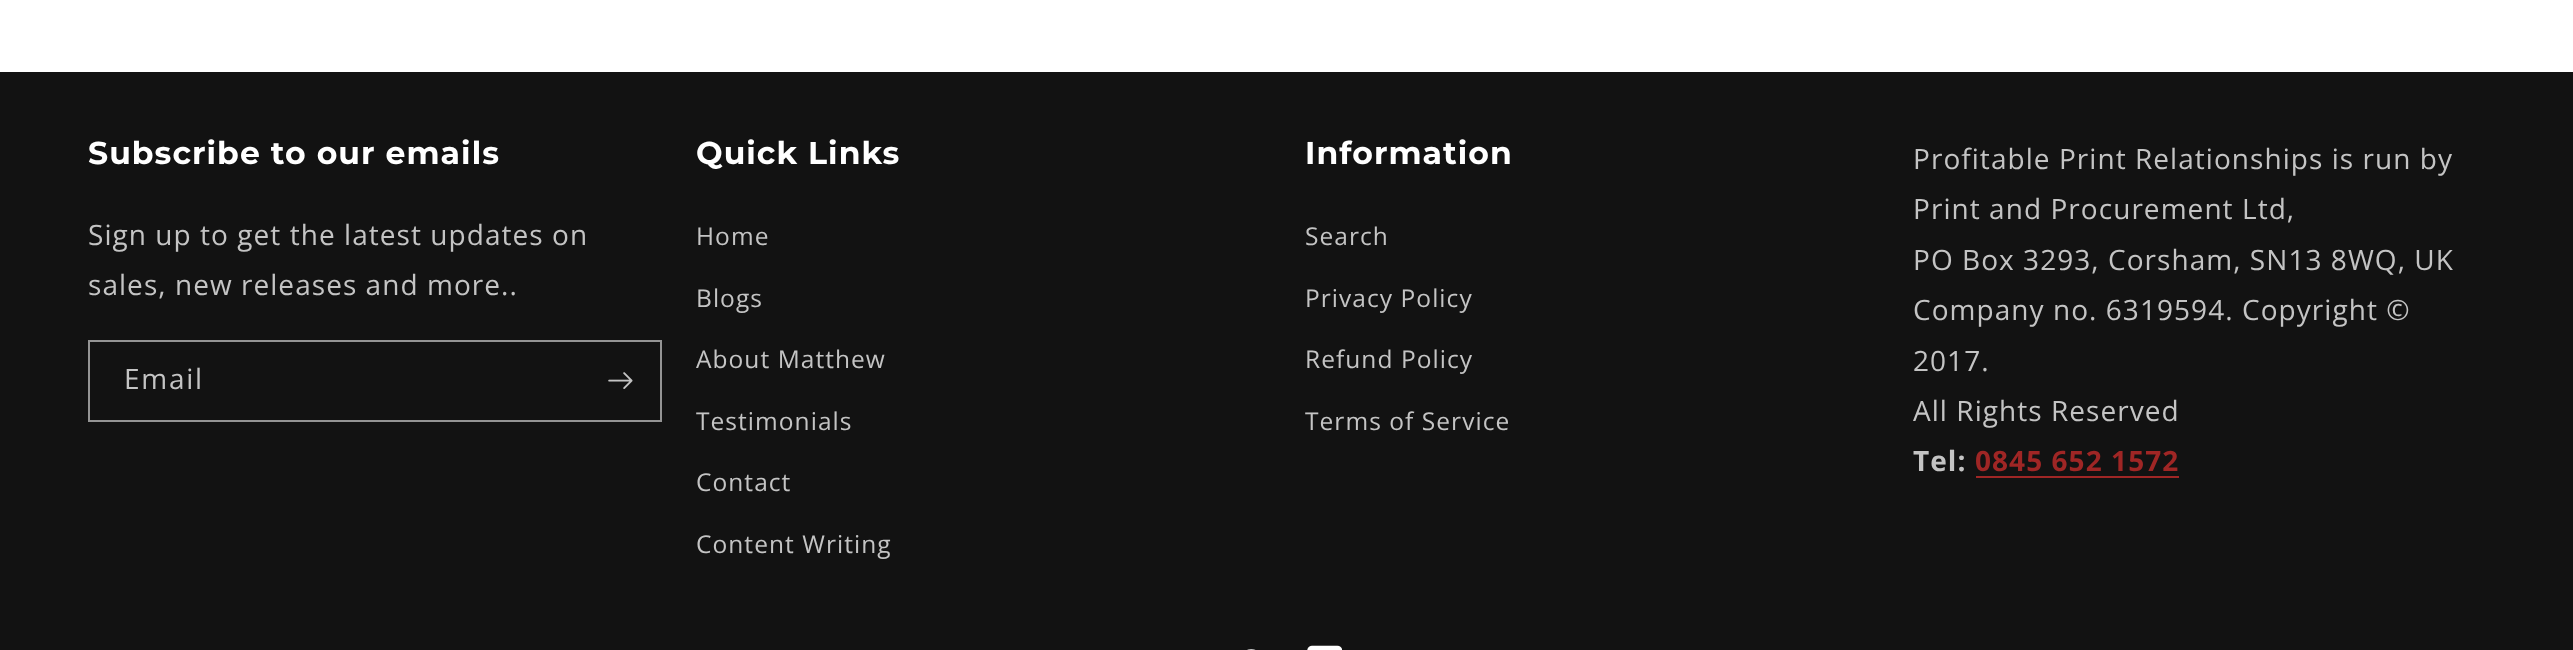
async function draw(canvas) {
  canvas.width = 2573;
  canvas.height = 650;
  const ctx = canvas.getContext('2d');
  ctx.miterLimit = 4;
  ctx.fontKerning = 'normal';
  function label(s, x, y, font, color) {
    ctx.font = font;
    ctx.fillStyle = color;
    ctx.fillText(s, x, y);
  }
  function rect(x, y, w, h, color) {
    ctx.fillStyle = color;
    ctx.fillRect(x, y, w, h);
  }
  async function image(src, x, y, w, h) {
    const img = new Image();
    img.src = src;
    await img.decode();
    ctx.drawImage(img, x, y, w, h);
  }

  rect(0, 0, 2573, 650, '#fff');
  rect(0, 72, 2573, 578, '#121212');
  ctx.letterSpacing = '1.05px';
  label('Subscribe to our emails', 88, 164, 'bold 31.5px Montserrat', '#fff');
  label('Sign up to get the latest updates on', 88, 245, '28px Open Sans', '#c4c4c4');
  label('sales, new releases and more..', 88, 295, '28px Open Sans', '#c4c4c4');
  ctx.strokeStyle = '#949494';
  ctx.lineWidth = 2;
  ctx.strokeRect(89, 341, 572, 80);
  ctx.letterSpacing = '1.75px';
  label('Email', 124, 389, '28px Open Sans', '#c4c4c4');
  await image('assets/img1.png', 608, 372, 25, 17);
  ctx.letterSpacing = '1.05px';
  label('Quick Links', 696, 164, 'bold 31.5px Montserrat', '#fff');
  label('Home', 696, 245, '24.5px Open Sans', '#c4c4c4');
  label('Blogs', 696, 307, '24.5px Open Sans', '#c4c4c4');
  label('About Matthew', 696, 368, '24.5px Open Sans', '#c4c4c4');
  label('Testimonials', 696, 430, '24.5px Open Sans', '#c4c4c4');
  label('Contact', 696, 491, '24.5px Open Sans', '#c4c4c4');
  label('Content Writing', 696, 553, '24.5px Open Sans', '#c4c4c4');
  label('Information', 1305, 164, 'bold 31.5px Montserrat', '#fff');
  label('Search', 1305, 245, '24.5px Open Sans', '#c4c4c4');
  label('Privacy Policy', 1305, 307, '24.5px Open Sans', '#c4c4c4');
  label('Refund Policy', 1305, 368, '24.5px Open Sans', '#c4c4c4');
  label('Terms of Service', 1305, 430, '24.5px Open Sans', '#c4c4c4');
  label('Profitable Print Relationships is run by', 1913, 169, '28px Open Sans', '#c4c4c4');
  label('Print and Procurement Ltd,', 1913, 219, '28px Open Sans', '#c4c4c4');
  label('PO Box 3293, Corsham, SN13 8WQ, UK', 1913, 270, '28px Open Sans', '#c4c4c4');
  label('Company no. 6319594. Copyright ©', 1913, 320, '28px Open Sans', '#c4c4c4');
  label('2017.', 1913, 371, '28px Open Sans', '#c4c4c4');
  label('All Rights Reserved', 1913, 421, '28px Open Sans', '#c4c4c4');
  label('Tel:', 1913, 471, 'bold 28px Open Sans', '#c4c4c4');
  label('0845 652 1572', 1975, 471, 'bold 28px Open Sans', '#9f2625');
  rect(1976, 476, 203, 2, '#9f2625');
  await image('assets/img2.png', 1247, 649, 9, 1);
  await image('assets/img3.png', 1307, 645, 35, 5);
}

draw(document.querySelector('canvas'));
